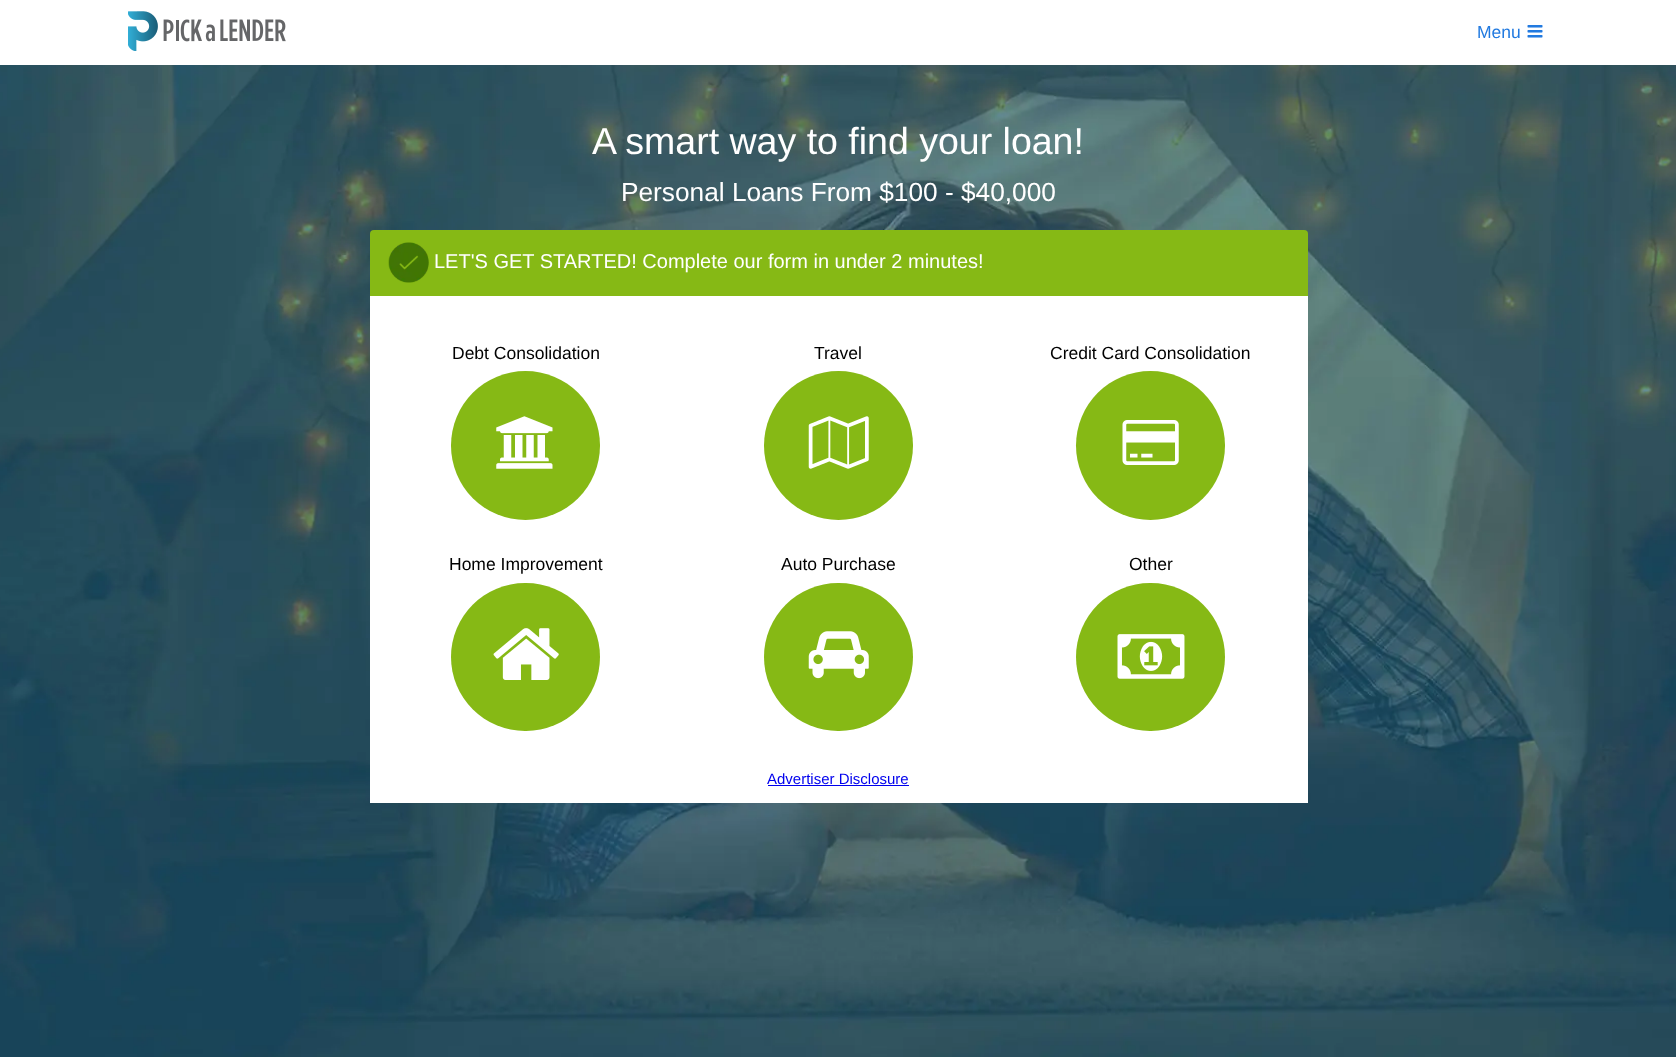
async function draw(canvas) {
  canvas.width = 1676;
  canvas.height = 1057;
  const ctx = canvas.getContext('2d');
  ctx.miterLimit = 4;
  ctx.fontKerning = 'normal';
  function label(s, x, y, font, color) {
    ctx.font = font;
    ctx.fillStyle = color;
    ctx.fillText(s, x, y);
  }
  function rect(x, y, w, h, color) {
    ctx.fillStyle = color;
    ctx.fillRect(x, y, w, h);
  }
  function roundedRect(x, y, w, h, r, color) {
    ctx.fillStyle = color;
    ctx.beginPath();
    ctx.roundRect(x, y, w, h, r);
    ctx.fill();
  }
  async function image(src, x, y, w, h) {
    const img = new Image();
    img.src = src;
    await img.decode();
    ctx.drawImage(img, x, y, w, h);
  }

  rect(0, 0, 1676, 1057, '#fff');
  await image('assets/img1.png', 128, 11, 158, 40);
  label('Menu', 1477, 38, '17.5px Liberation Sans', '#227ae0');
  await image('assets/img2.png', 1527, 25, 16, 13);
  await image('assets/img3.png', 0, 65, 1676, 992);
  label('A smart way to find your loan!', 592, 154, '37.5px Liberation Sans', '#fff');
  label('Personal Loans From $100 - $40,000', 621, 201, '26.25px Liberation Sans', '#fff');
  ctx.fillStyle = '#86b915';
  ctx.beginPath();
  ctx.roundRect(370, 230, 938, 66, [4, 4, 0, 0]);
  ctx.fill();
  await image('assets/img4.png', 388, 242, 41, 41);
  label('LET\'S GET STARTED! Complete our form in under 2 minutes!', 434, 268, '20px Liberation Sans', '#fff');
  rect(370, 296, 938, 507, '#fff');
  label('Debt Consolidation', 452, 359, '17.5px Liberation Sans', '#000');
  ctx.fillStyle = '#86b915';
  ctx.beginPath();
  ctx.arc(525.5, 445.5, 74.5, 0, 2 * Math.PI);
  ctx.fill();
  await image('assets/img5.png', 496, 416, 57, 53);
  label('Travel', 814, 359, '17.5px Liberation Sans', '#000');
  ctx.fillStyle = '#86b915';
  ctx.beginPath();
  ctx.arc(838.5, 445.5, 74.5, 0, 2 * Math.PI);
  ctx.fill();
  await image('assets/img6.png', 808, 416, 61, 53);
  label('Credit Card Consolidation', 1050, 359, '17.5px Liberation Sans', '#000');
  ctx.fillStyle = '#86b915';
  ctx.beginPath();
  ctx.arc(1150.5, 445.5, 74.5, 0, 2 * Math.PI);
  ctx.fill();
  await image('assets/img7.png', 1122, 420, 57, 45);
  label('Home Improvement', 449, 570, '17.5px Liberation Sans', '#000');
  roundedRect(451, 583, 149, 148, 74, '#86b915');
  await image('assets/img8.png', 493, 628, 66, 52);
  label('Auto Purchase', 781, 570, '17.5px Liberation Sans', '#000');
  roundedRect(764, 583, 149, 148, 74, '#86b915');
  await image('assets/img9.png', 808, 631, 61, 48);
  label('Other', 1129, 570, '17.5px Liberation Sans', '#000');
  roundedRect(1076, 583, 149, 148, 74, '#86b915');
  await image('assets/img10.png', 1117, 634, 68, 45);
  label('Advertiser Disclosure', 767, 784, '15px Liberation Sans', '#00e');
  rect(768, 785, 141, 1, '#00e');
}

draw(document.querySelector('canvas'));
